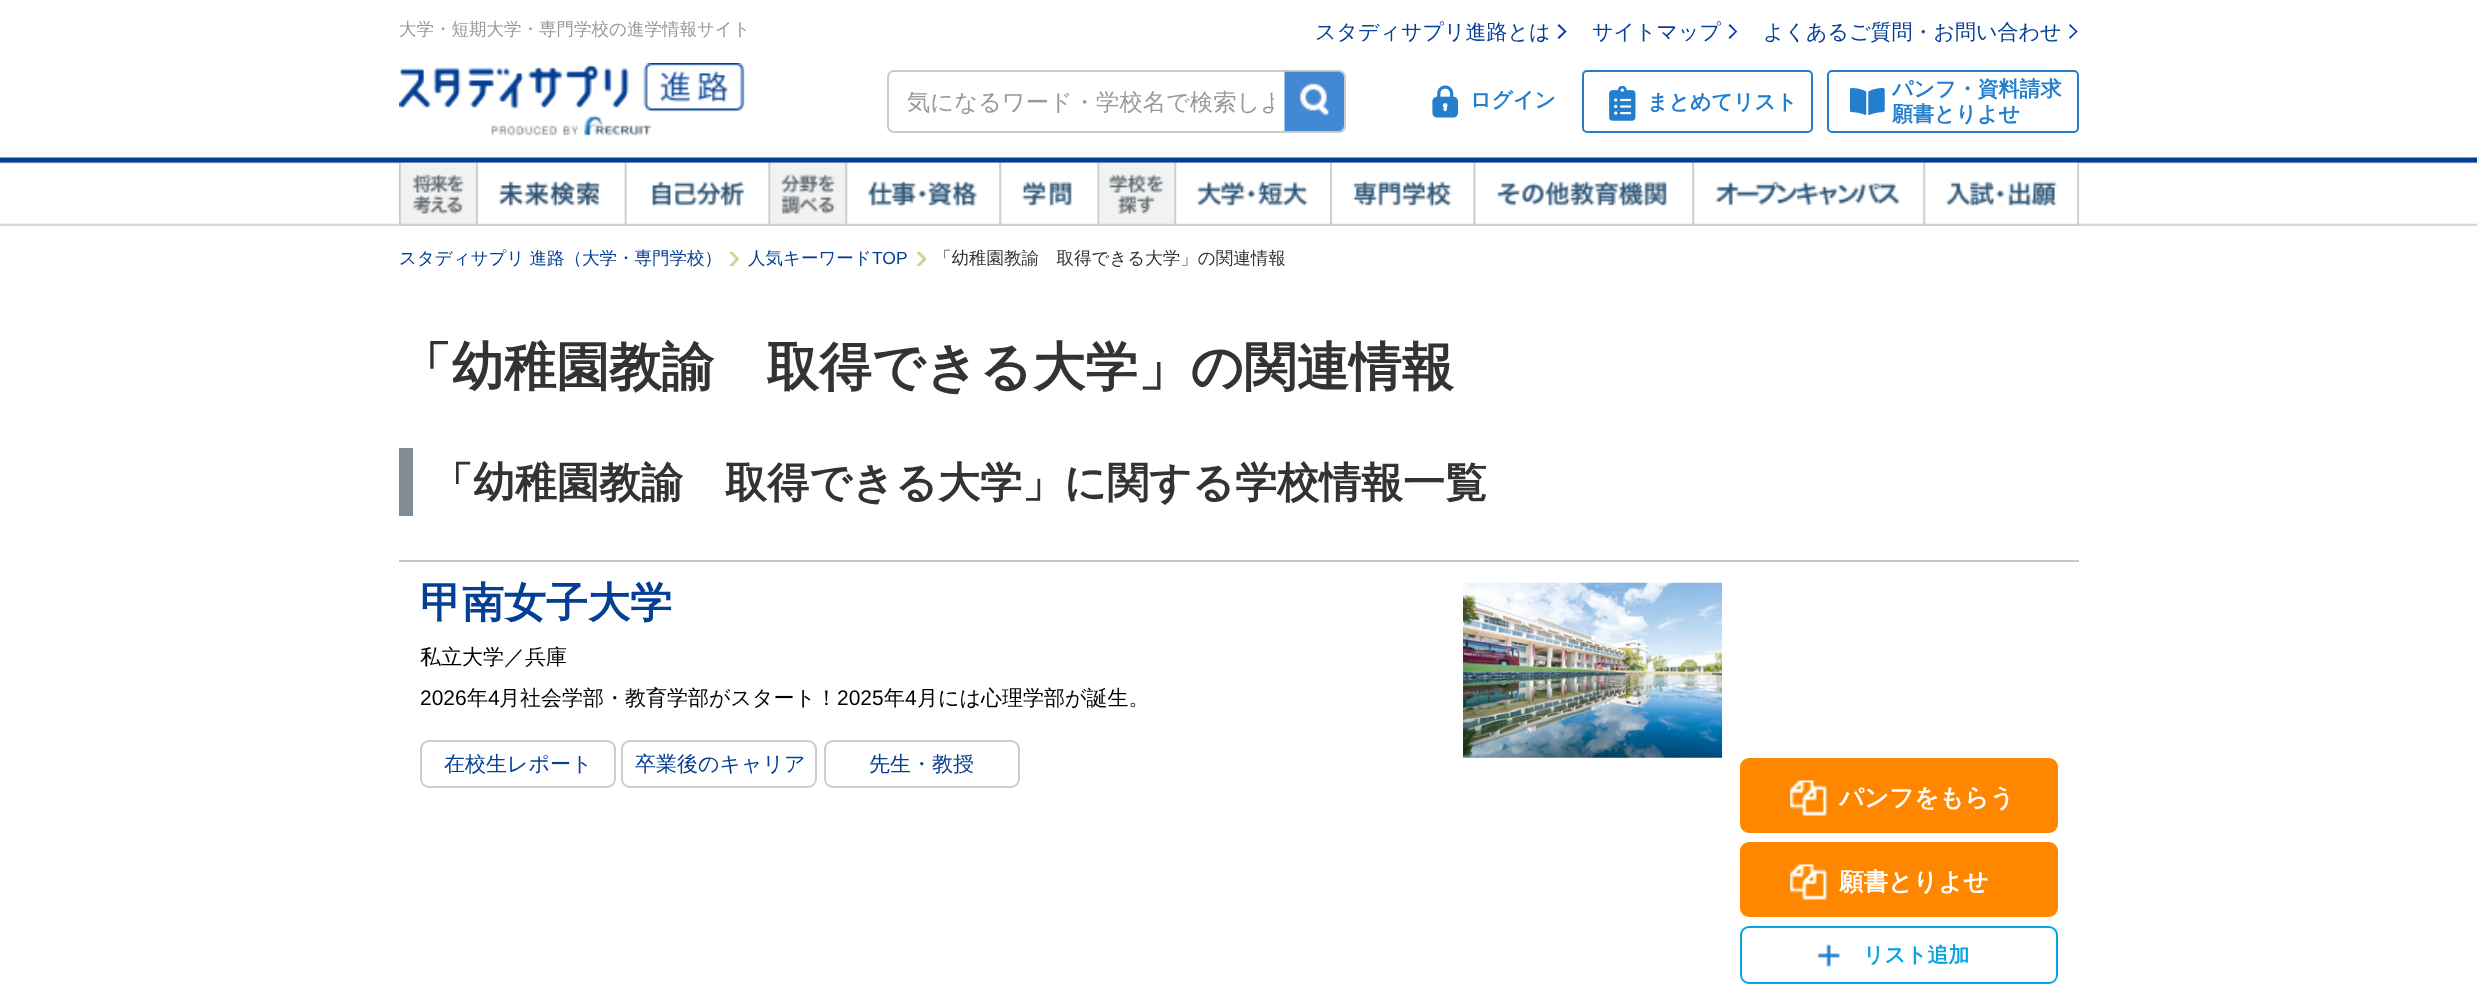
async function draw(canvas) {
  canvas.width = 2477;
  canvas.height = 990;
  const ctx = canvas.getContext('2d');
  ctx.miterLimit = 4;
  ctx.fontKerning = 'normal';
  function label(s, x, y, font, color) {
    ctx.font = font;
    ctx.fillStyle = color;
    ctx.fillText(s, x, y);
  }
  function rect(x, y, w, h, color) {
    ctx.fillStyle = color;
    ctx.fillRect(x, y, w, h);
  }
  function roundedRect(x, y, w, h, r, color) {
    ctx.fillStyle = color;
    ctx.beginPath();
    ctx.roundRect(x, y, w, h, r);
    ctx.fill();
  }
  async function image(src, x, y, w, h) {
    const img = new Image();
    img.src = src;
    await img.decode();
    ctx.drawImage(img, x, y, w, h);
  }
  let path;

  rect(0, 0, 2477, 990, '#fff');
  label('大学・短期大学・専門学校の進学情報サイト', 399, 35, '500 17.5px WenQuanYi Zen Hei', '#999');
  await image('assets/img1.png', 399, 63, 346, 74);
  label('スタディサプリ進路とは', 1315, 39, '500 21px WenQuanYi Zen Hei', '#043f94');
  ctx.fillStyle = '#03c';
  path = new Path2D('M1559 24L1566.5 31.5L1565 32.5L1557.5 25.5Z');
  ctx.fill(path);
  path = new Path2D('M1565 30.5L1566.5 31.5L1559 39L1557.5 37.5Z');
  ctx.fill(path);
  label('サイトマップ', 1592, 39, '500 21px WenQuanYi Zen Hei', '#043f94');
  ctx.fillStyle = '#03c';
  path = new Path2D('M1730 24L1737 31.5L1736 32.5L1728.5 25.5Z');
  ctx.fill(path);
  path = new Path2D('M1736 30.5L1737 31.5L1730 39L1728.5 37.5Z');
  ctx.fill(path);
  label('よくあるご質問・お問い合わせ', 1763, 39, '500 21px WenQuanYi Zen Hei', '#043f94');
  ctx.fillStyle = '#03c';
  path = new Path2D('M2070 24L2077.5 31.5L2076.5 32.5L2069 25.5Z');
  ctx.fill(path);
  path = new Path2D('M2076.5 30.5L2077.5 31.5L2070 39L2069 37.5Z');
  ctx.fill(path);
  ctx.beginPath();
  ctx.roundRect(888, 71, 457, 61, 6);
  ctx.strokeStyle = '#cbcbcb';
  ctx.lineWidth = 2;
  ctx.stroke();
  ctx.save();
  ctx.beginPath();
  ctx.rect(907, 89, 367, 28);
  ctx.clip();
  label('気になるワード・学校名で検索しよ', 907, 110, '500 23.3px WenQuanYi Zen Hei', '#999');
  ctx.restore();
  await image('assets/img2.png', 1284, 71, 60, 61);
  await image('assets/img3.png', 1432, 85, 27, 33);
  label('ログイン', 1470, 107, 'bold 21px WenQuanYi Zen Hei', '#237ecd');
  ctx.beginPath();
  ctx.roundRect(1583, 71, 229, 61, 4);
  ctx.strokeStyle = '#237ecd';
  ctx.stroke();
  await image('assets/img4.png', 1609, 86, 27, 35);
  label('まとめてリスト', 1647, 109, 'bold 21px WenQuanYi Zen Hei', '#237ecd');
  ctx.beginPath();
  ctx.roundRect(1828, 71, 250, 61, 4);
  ctx.stroke();
  await image('assets/img5.png', 1850, 87, 35, 28);
  label('パンフ・資料請求', 1892, 96, 'bold 21px WenQuanYi Zen Hei', '#237ecd');
  label('願書とりよせ', 1892, 121, 'bold 21px WenQuanYi Zen Hei', '#237ecd');
  await image('assets/img6.png', 0, 157, 2477, 69);
  await image('assets/img7.png', 399, 162, 77, 64);
  await image('assets/img8.png', 476, 162, 149, 64);
  await image('assets/img9.png', 624, 162, 144, 64);
  await image('assets/img10.png', 768, 162, 77, 64);
  await image('assets/img11.png', 845, 162, 155, 64);
  await image('assets/img12.png', 999, 162, 98, 64);
  await image('assets/img13.png', 1097, 162, 77, 64);
  await image('assets/img14.png', 1174, 162, 156, 64);
  await image('assets/img15.png', 1330, 162, 144, 64);
  await image('assets/img16.png', 1473, 162, 220, 64);
  await image('assets/img17.png', 1692, 162, 232, 64);
  await image('assets/img18.png', 1923, 162, 156, 64);
  label('スタディサプリ 進路（大学・専門学校）', 399, 264, '500 17.5px WenQuanYi Zen Hei', '#043f94');
  await image('assets/img19.png', 729, 252, 10, 14);
  label('人気キーワード', 748, 264, '500 17.5px WenQuanYi Zen Hei', '#043f94');
  label('TOP', 872, 264, '17.5px Liberation Sans', '#043f94');
  await image('assets/img20.png', 917, 252, 9, 14);
  label('「幼稚園教諭　取得できる大学」の関連情報', 934, 264, '500 17.5px WenQuanYi Zen Hei', '#333');
  label('「幼稚園教諭　取得できる大学」の関連情報', 399, 385, 'bold 52.5px WenQuanYi Zen Hei', '#333');
  rect(399, 448, 14, 68, '#808d96');
  label('「幼稚園教諭　取得できる大学」に関する学校情報一覧', 431, 497, 'bold 42px WenQuanYi Zen Hei', '#333');
  rect(399, 560, 1680, 2, '#c7c7c7');
  label('甲南女子大学', 420, 617, 'bold 42px WenQuanYi Zen Hei', '#043f94');
  label('私立大学／兵庫', 420, 664, '500 21px WenQuanYi Zen Hei', '#000');
  label('2026', 420, 705, '21px Liberation Sans', '#000');
  label('年', 467, 705, '500 21px WenQuanYi Zen Hei', '#000');
  label('4', 488, 705, '21px Liberation Sans', '#000');
  label('月社会学部・教育学部がスタート！', 499, 705, '500 21px WenQuanYi Zen Hei', '#000');
  label('2025', 837, 705, '21px Liberation Sans', '#000');
  label('年', 884, 705, '500 21px WenQuanYi Zen Hei', '#000');
  label('4', 905, 705, '21px Liberation Sans', '#000');
  label('月には心理学部が誕生。', 917, 705, '500 21px WenQuanYi Zen Hei', '#000');
  ctx.beginPath();
  ctx.roundRect(421, 741, 194, 46, 8);
  ctx.strokeStyle = '#ccc';
  ctx.stroke();
  label('在校生レポート', 444, 771, '500 21px WenQuanYi Zen Hei', '#043f94');
  ctx.beginPath();
  ctx.roundRect(622, 741, 194, 46, 8);
  ctx.stroke();
  label('卒業後のキャリア', 635, 771, '500 21px WenQuanYi Zen Hei', '#043f94');
  ctx.beginPath();
  ctx.roundRect(825, 741, 194, 46, 8);
  ctx.stroke();
  label('先生・教授', 869, 771, '500 21px WenQuanYi Zen Hei', '#043f94');
  await image('assets/img21.png', 1463, 582, 259, 176);
  roundedRect(1740, 758, 318, 75, 9, '#ff8700');
  await image('assets/img22.png', 1790, 780, 37, 36);
  label('パンフをもらう', 1839, 806, 'bold 24.5px WenQuanYi Zen Hei', '#fff');
  roundedRect(1740, 842, 318, 75, 9, '#ff8700');
  await image('assets/img22.png', 1790, 864, 37, 36);
  label('願書とりよせ', 1839, 890, 'bold 24.5px WenQuanYi Zen Hei', '#fff');
  ctx.beginPath();
  ctx.roundRect(1741, 927, 316, 56, 8);
  ctx.strokeStyle = '#07a4e4';
  ctx.stroke();
  await image('assets/img23.png', 1817, 944, 23, 23);
  label('リスト追加', 1863, 962, 'bold 21px WenQuanYi Zen Hei', '#07a4e4');
}

draw(document.querySelector('canvas'));
